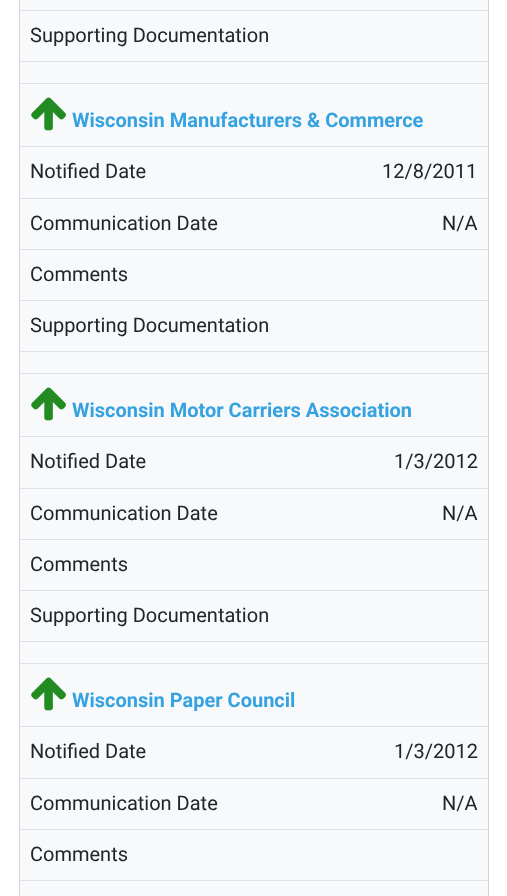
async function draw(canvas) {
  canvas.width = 507;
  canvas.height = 896;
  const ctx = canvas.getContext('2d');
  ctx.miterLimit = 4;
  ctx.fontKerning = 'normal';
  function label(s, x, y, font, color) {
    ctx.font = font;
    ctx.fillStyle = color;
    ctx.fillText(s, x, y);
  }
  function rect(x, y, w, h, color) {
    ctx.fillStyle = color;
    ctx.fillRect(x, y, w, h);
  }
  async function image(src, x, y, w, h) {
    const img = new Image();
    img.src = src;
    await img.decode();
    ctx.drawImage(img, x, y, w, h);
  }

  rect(0, 0, 507, 896, '#fff');
  ctx.fillStyle = '#f8f9fa';
  ctx.beginPath();
  ctx.rect(19.5, -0.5, 469, 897);
  ctx.fill();
  ctx.strokeStyle = '#d3d3d3';
  ctx.stroke();
  rect(20, 10, 468, 1, '#dee2e6');
  label('Supporting Documentation', 30, 42, '20px Roboto', '#212529');
  rect(20, 61, 468, 1, '#dee2e6');
  rect(20, 83, 468, 1, '#dee2e6');
  await image('assets/img1.png', 31, 97, 35, 34);
  label('Wisconsin Manufacturers & Commerce', 72, 127, 'bold 20px Roboto', '#35a2e1');
  rect(20, 146, 468, 1, '#dee2e6');
  label('Notified Date', 30, 178, '20px Roboto', '#212529');
  label('12/8/2011', 382, 178, '20px Roboto', '#212529');
  rect(20, 198, 468, 1, '#dee2e6');
  label('Communication Date', 30, 230, '20px Roboto', '#212529');
  label('N/A', 442, 230, '20px Roboto', '#212529');
  rect(20, 249, 468, 1, '#dee2e6');
  label('Comments', 30, 281, '20px Roboto', '#212529');
  rect(20, 300, 468, 1, '#dee2e6');
  label('Supporting Documentation', 30, 332, '20px Roboto', '#212529');
  rect(20, 351, 468, 1, '#dee2e6');
  rect(20, 373, 468, 1, '#dee2e6');
  await image('assets/img1.png', 31, 387, 35, 34);
  label('Wisconsin Motor Carriers Association', 72, 417, 'bold 20px Roboto', '#35a2e1');
  rect(20, 436, 468, 1, '#dee2e6');
  label('Notified Date', 30, 468, '20px Roboto', '#212529');
  label('1/3/2012', 394, 468, '20px Roboto', '#212529');
  rect(20, 488, 468, 1, '#dee2e6');
  label('Communication Date', 30, 520, '20px Roboto', '#212529');
  label('N/A', 442, 520, '20px Roboto', '#212529');
  rect(20, 539, 468, 1, '#dee2e6');
  label('Comments', 30, 571, '20px Roboto', '#212529');
  rect(20, 590, 468, 1, '#dee2e6');
  label('Supporting Documentation', 30, 622, '20px Roboto', '#212529');
  rect(20, 641, 468, 1, '#dee2e6');
  rect(20, 663, 468, 1, '#dee2e6');
  await image('assets/img1.png', 31, 677, 35, 34);
  label('Wisconsin Paper Council', 72, 707, 'bold 20px Roboto', '#35a2e1');
  rect(20, 726, 468, 1, '#dee2e6');
  label('Notified Date', 30, 758, '20px Roboto', '#212529');
  label('1/3/2012', 394, 758, '20px Roboto', '#212529');
  rect(20, 778, 468, 1, '#dee2e6');
  label('Communication Date', 30, 810, '20px Roboto', '#212529');
  label('N/A', 442, 810, '20px Roboto', '#212529');
  rect(20, 829, 468, 1, '#dee2e6');
  label('Comments', 30, 861, '20px Roboto', '#212529');
  rect(20, 880, 468, 1, '#dee2e6');
}

draw(document.querySelector('canvas'));
